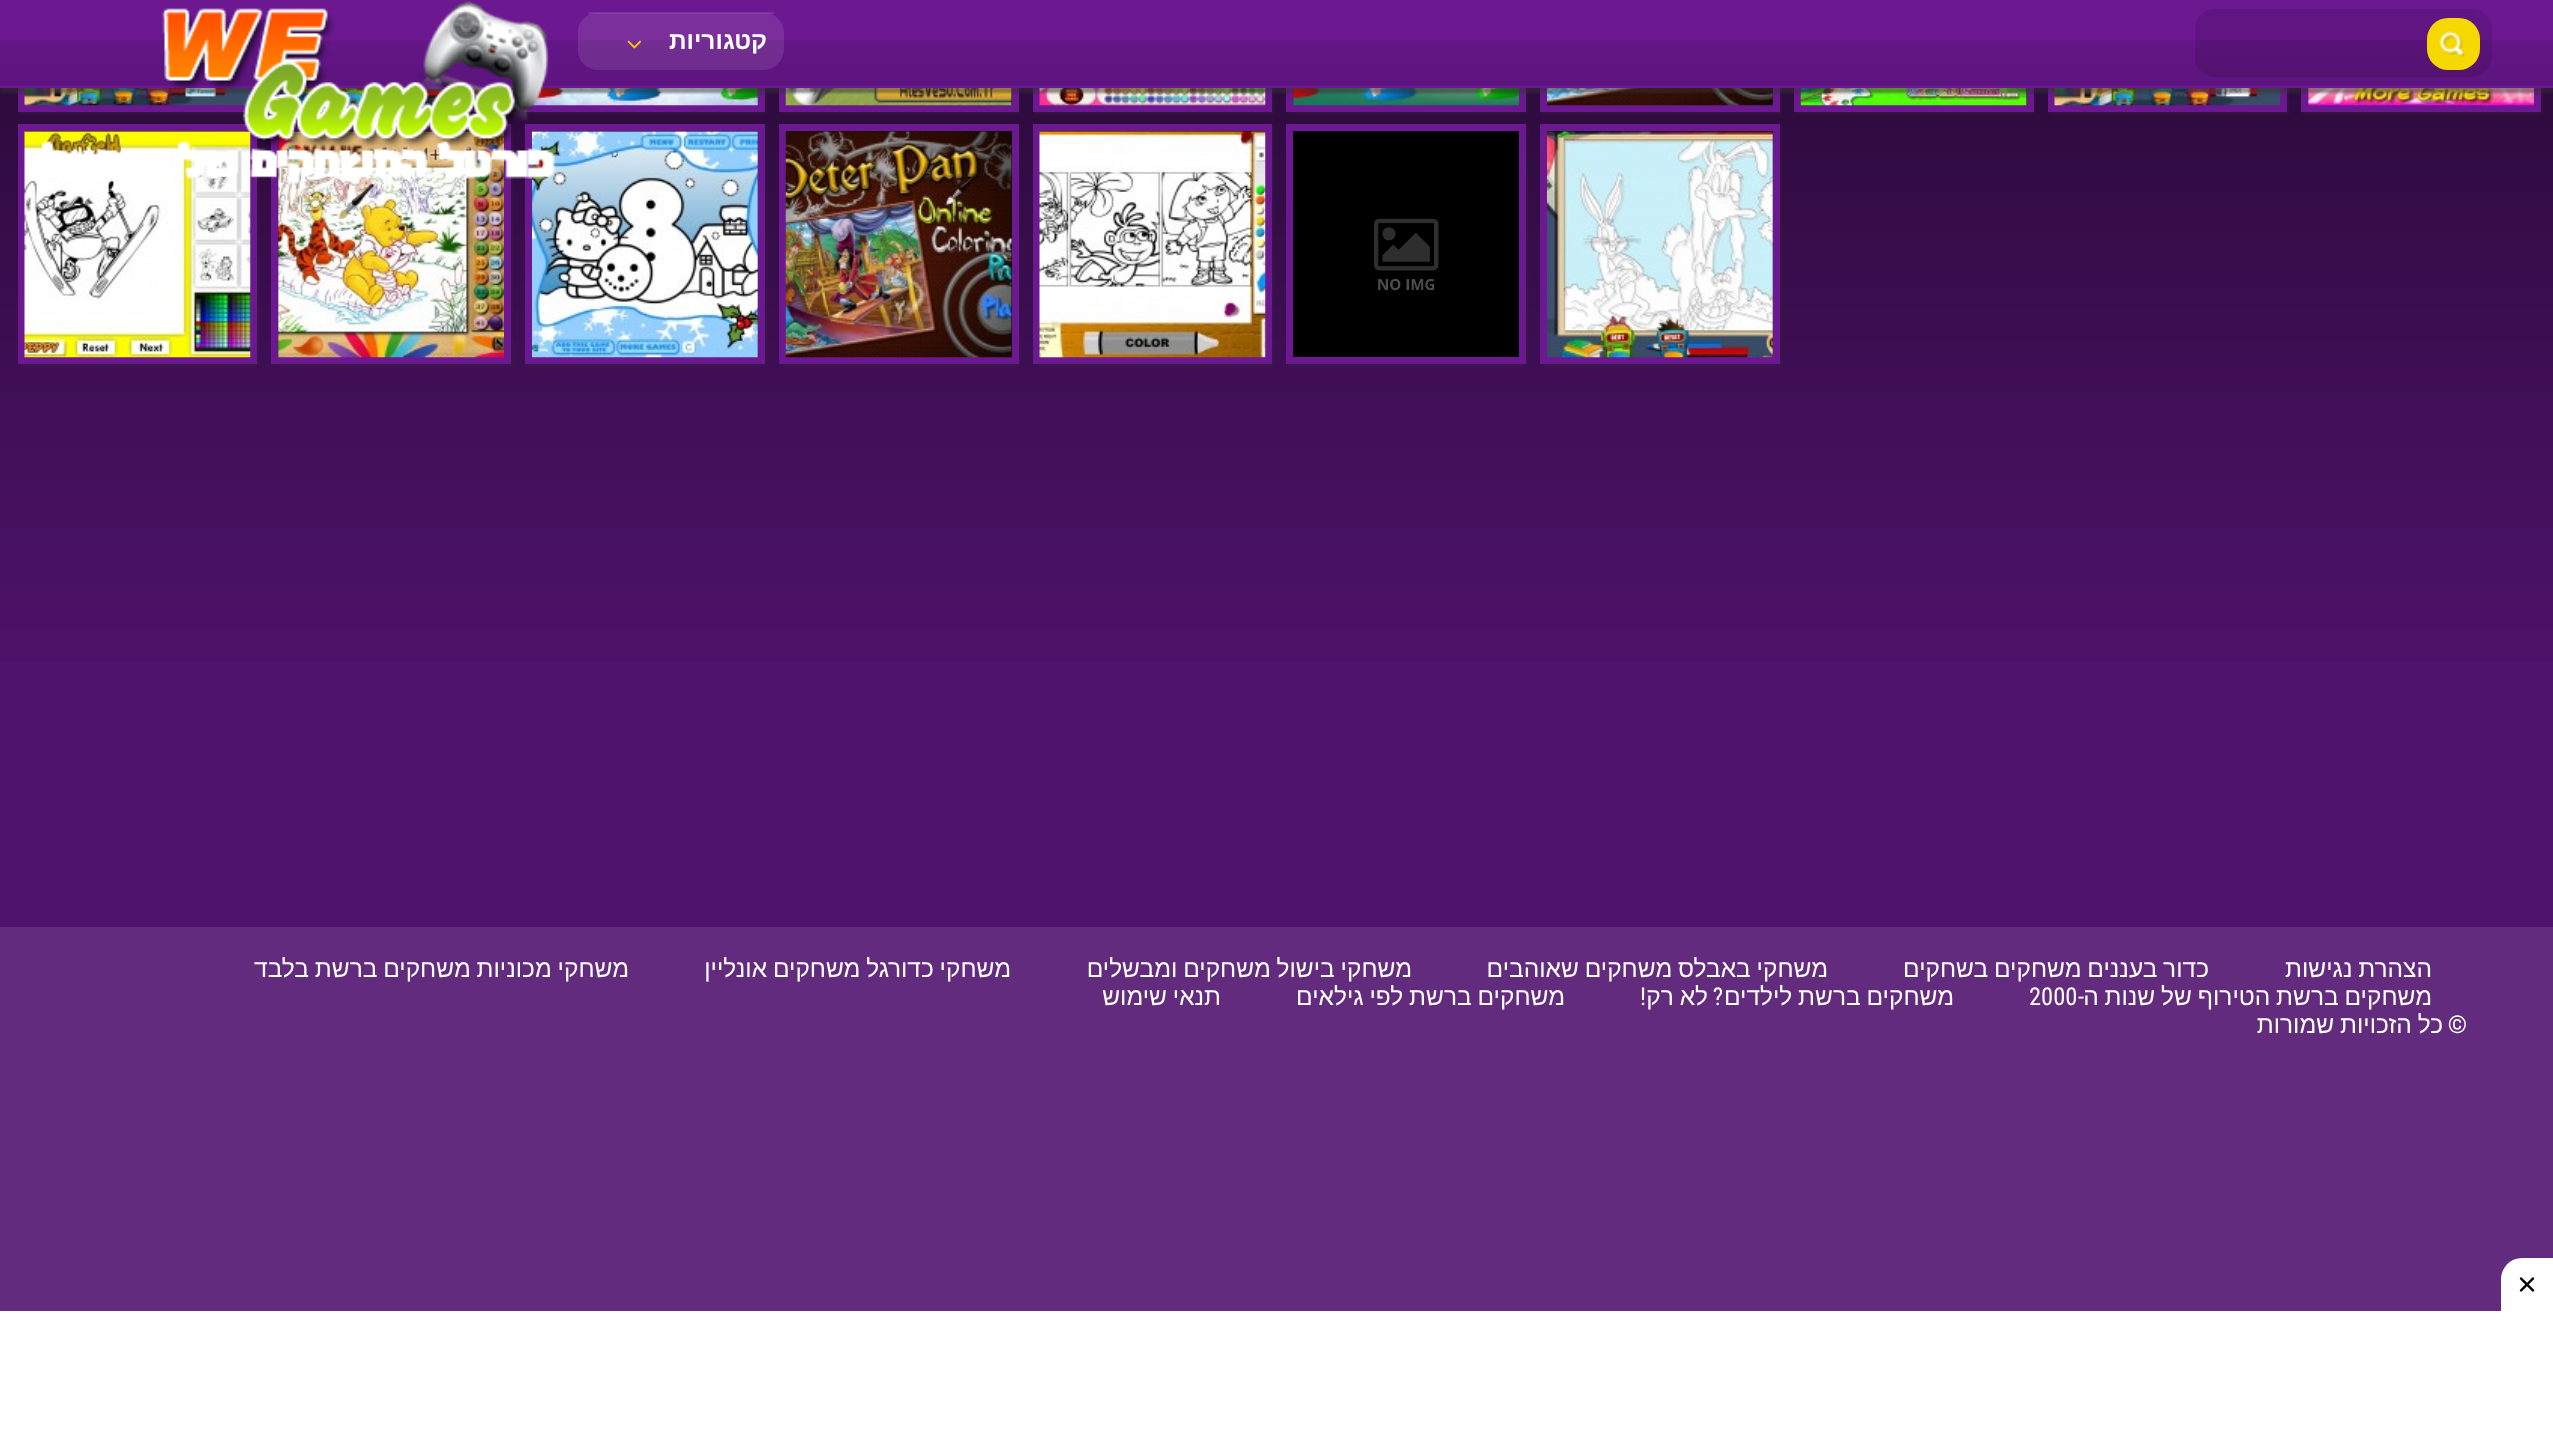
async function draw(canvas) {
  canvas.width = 2553;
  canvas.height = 1450;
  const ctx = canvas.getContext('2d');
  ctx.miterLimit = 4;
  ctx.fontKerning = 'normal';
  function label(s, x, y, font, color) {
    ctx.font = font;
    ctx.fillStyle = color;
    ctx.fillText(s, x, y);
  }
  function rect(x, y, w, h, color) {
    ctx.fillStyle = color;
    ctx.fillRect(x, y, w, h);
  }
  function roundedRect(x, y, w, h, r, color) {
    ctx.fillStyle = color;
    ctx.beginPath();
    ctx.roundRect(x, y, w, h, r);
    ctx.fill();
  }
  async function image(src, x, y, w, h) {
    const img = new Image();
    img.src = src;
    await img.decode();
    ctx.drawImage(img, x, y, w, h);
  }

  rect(0, 0, 2553, 1450, '#50136c');
  await image('assets/img1.png', 0, 88, 2553, 573);
  ctx.fillStyle = '#3232324d';
  ctx.filter = 'blur(1px)';
  ctx.beginPath();
  ctx.rect(2303, -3, 240, 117);
  ctx.fill();
  ctx.filter = 'none';
  ctx.strokeStyle = '#6b1891';
  ctx.lineWidth = 7;
  ctx.strokeRect(2304.5, -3.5, 233, 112);
  await image('assets/img2.png', 2308, 88, 226, 18);
  ctx.filter = 'blur(1px)';
  ctx.beginPath();
  ctx.rect(2049, -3, 240, 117);
  ctx.fill();
  ctx.filter = 'none';
  ctx.strokeRect(2051.5, -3.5, 232, 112);
  await image('assets/img3.png', 2054, 88, 227, 18);
  ctx.filter = 'blur(1px)';
  ctx.beginPath();
  ctx.rect(1796, -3, 239, 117);
  ctx.fill();
  ctx.filter = 'none';
  ctx.strokeRect(1797.5, -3.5, 233, 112);
  rect(2026, 88, 1, 17, '#000');
  await image('assets/img4.png', 1800, 88, 227, 18);
  ctx.fillStyle = '#3232324d';
  ctx.filter = 'blur(1px)';
  ctx.beginPath();
  ctx.rect(1542, -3, 240, 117);
  ctx.fill();
  ctx.filter = 'none';
  ctx.strokeRect(1543.5, -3.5, 233, 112);
  await image('assets/img5.png', 1547, 88, 226, 18);
  ctx.filter = 'blur(1px)';
  ctx.beginPath();
  ctx.rect(1288, -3, 240, 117);
  ctx.fill();
  ctx.filter = 'none';
  ctx.strokeRect(1289.5, -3.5, 233, 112);
  await image('assets/img6.png', 1293, 88, 226, 18);
  ctx.filter = 'blur(1px)';
  ctx.beginPath();
  ctx.rect(1034, -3, 240, 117);
  ctx.fill();
  ctx.filter = 'none';
  ctx.strokeRect(1036.5, -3.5, 232, 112);
  await image('assets/img7.png', 1039, 88, 227, 18);
  ctx.filter = 'blur(1px)';
  ctx.beginPath();
  ctx.rect(781, -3, 239, 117);
  ctx.fill();
  ctx.filter = 'none';
  ctx.strokeRect(782.5, -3.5, 233, 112);
  rect(1011, 88, 1, 17, '#000');
  await image('assets/img8.png', 785, 88, 227, 18);
  ctx.fillStyle = '#3232324d';
  ctx.filter = 'blur(1px)';
  ctx.beginPath();
  ctx.rect(527, -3, 240, 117);
  ctx.fill();
  ctx.filter = 'none';
  ctx.strokeRect(528.5, -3.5, 233, 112);
  await image('assets/img9.png', 532, 88, 226, 18);
  ctx.filter = 'blur(1px)';
  ctx.beginPath();
  ctx.rect(273, -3, 240, 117);
  ctx.fill();
  ctx.filter = 'none';
  ctx.strokeRect(274.5, -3.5, 233, 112);
  await image('assets/img10.png', 278, 88, 208, 18);
  ctx.filter = 'blur(1px)';
  ctx.beginPath();
  ctx.rect(19, -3, 240, 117);
  ctx.fill();
  ctx.filter = 'none';
  ctx.strokeRect(21.5, -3.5, 232, 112);
  await image('assets/img11.png', 24, 88, 227, 18);
  ctx.filter = 'blur(1px)';
  ctx.beginPath();
  ctx.rect(1542, 126, 240, 240);
  ctx.fill();
  ctx.filter = 'none';
  ctx.strokeRect(1543.5, 127.5, 233, 233);
  rect(1547, 131, 226, 226, '#000');
  await image('assets/img12.png', 1547, 131, 226, 227);
  ctx.fillStyle = '#3232324d';
  ctx.filter = 'blur(1px)';
  ctx.beginPath();
  ctx.rect(1288, 126, 240, 240);
  ctx.fill();
  ctx.filter = 'none';
  ctx.strokeRect(1289.5, 127.5, 233, 233);
  rect(1293, 131, 226, 226, '#000');
  await image('assets/img13.png', 1374, 218, 65, 73);
  ctx.fillStyle = '#3232324d';
  ctx.filter = 'blur(1px)';
  ctx.beginPath();
  ctx.rect(1034, 126, 240, 240);
  ctx.fill();
  ctx.filter = 'none';
  ctx.strokeRect(1036.5, 127.5, 232, 233);
  rect(1040, 131, 225, 1, '#000');
  await image('assets/img14.png', 1039, 131, 227, 227);
  ctx.fillStyle = '#3232324d';
  ctx.filter = 'blur(1px)';
  ctx.beginPath();
  ctx.rect(781, 126, 239, 240);
  ctx.fill();
  ctx.filter = 'none';
  ctx.strokeRect(782.5, 127.5, 233, 233);
  rect(786, 131, 226, 226, '#000');
  await image('assets/img15.png', 785, 131, 227, 227);
  ctx.fillStyle = '#3232324d';
  ctx.filter = 'blur(1px)';
  ctx.beginPath();
  ctx.rect(527, 126, 240, 240);
  ctx.fill();
  ctx.filter = 'none';
  ctx.strokeRect(528.5, 127.5, 233, 233);
  rect(532, 131, 226, 226, '#000');
  await image('assets/img16.png', 532, 131, 226, 227);
  ctx.fillStyle = '#3232324d';
  ctx.filter = 'blur(1px)';
  ctx.beginPath();
  ctx.rect(273, 126, 240, 240);
  ctx.fill();
  ctx.filter = 'none';
  ctx.strokeRect(274.5, 127.5, 233, 233);
  rect(278, 131, 226, 226, '#000');
  await image('assets/img17.png', 278, 131, 226, 227);
  ctx.fillStyle = '#3232324d';
  ctx.filter = 'blur(1px)';
  ctx.beginPath();
  ctx.rect(19, 126, 240, 240);
  ctx.fill();
  ctx.filter = 'none';
  ctx.strokeRect(21.5, 127.5, 232, 233);
  rect(25, 131, 225, 1, '#000');
  await image('assets/img18.png', 24, 131, 227, 227);
  ctx.fillStyle = '#32323280';
  ctx.filter = 'blur(1px)';
  ctx.beginPath();
  ctx.rect(0, 5, 2553, 88);
  ctx.fill();
  ctx.filter = 'none';
  rect(0, 0, 2553, 88, '#6b1891');
  await image('assets/img19.png', 0, 40, 2553, 46);
  await image('assets/img20.png', 2195, 9, 297, 68);
  roundedRect(2427, 18, 53, 52, 21, '#f4d800');
  await image('assets/img21.png', 2439, 31, 26, 26);
  await image('assets/img22.png', 578, 12, 206, 58);
  rect(588, 12, 186, 2, '#fafafa1a');
  ctx.direction = 'rtl';
  label('קטגוריות', 767, 49, 'bold 24.5px Liberation Sans', '#fff');
  await image('assets/img23.png', 627, 40, 15, 9);
  await image('assets/img24.png', 41, 1, 515, 184);
  rect(0, 927, 2553, 384, '#622b7d');
  ctx.wordSpacing = '-1px';
  label('הצהרת נגישות', 2432, 977, '24.5px Liberation Sans', '#fff');
  label('כדור בעננים משחקים בשחקים', 2209, 977, '24.5px Liberation Sans', '#fff');
  label('משחקי באבלס משחקים שאוהבים', 1828, 977, '24.5px Liberation Sans', '#fff');
  label('משחקי בישול משחקים ומבשלים', 1412, 977, '24.5px Liberation Sans', '#fff');
  label('משחקי כדורגל משחקים אונליין', 1011, 977, '24.5px Liberation Sans', '#fff');
  label('משחקי מכוניות משחקים ברשת בלבד', 629, 977, '24.5px Liberation Sans', '#fff');
  label('משחקים ברשת הטירוף של שנות ה', 2432, 1005, '24.5px Liberation Sans', '#fff');
  ctx.wordSpacing = '0px';
  label('-', 2084, 1005, '24.5px Roboto Condensed', '#fff');
  ctx.direction = 'ltr';
  label('2000', 2029, 1005, '24.5px Roboto Condensed', '#fff');
  ctx.wordSpacing = '-1px';
  ctx.direction = 'rtl';
  label('משחקים ברשת לילדים', 1954, 1005, '24.5px Liberation Sans', '#fff');
  ctx.wordSpacing = '0px';
  label('?', 1723, 1005, '24.5px Roboto Condensed', '#fff');
  ctx.wordSpacing = '-1px';
  label('לא רק', 1708, 1005, '24.5px Liberation Sans', '#fff');
  ctx.wordSpacing = '0px';
  label('!', 1646, 1005, '24.5px Roboto Condensed', '#fff');
  ctx.wordSpacing = '-1px';
  label('משחקים ברשת לפי גילאים', 1565, 1005, '24.5px Liberation Sans', '#fff');
  label('תנאי שימוש', 1221, 1005, '24.5px Liberation Sans', '#fff');
  ctx.wordSpacing = '0px';
  label('©', 2467, 1033, '24.5px Roboto Condensed', '#fff');
  ctx.wordSpacing = '-1px';
  label('כל הזכויות שמורות', 2443, 1033, '24.5px Liberation Sans', '#fff');
  rect(0, 1311, 2553, 139, '#fefefe');
  ctx.beginPath();
  ctx.roundRect(2501, 1258, 52, 53, [21, 0, 0, 0]);
  ctx.fill();
  await image('assets/img25.png', 2519, 1277, 16, 15);
}

draw(document.querySelector('canvas'));
